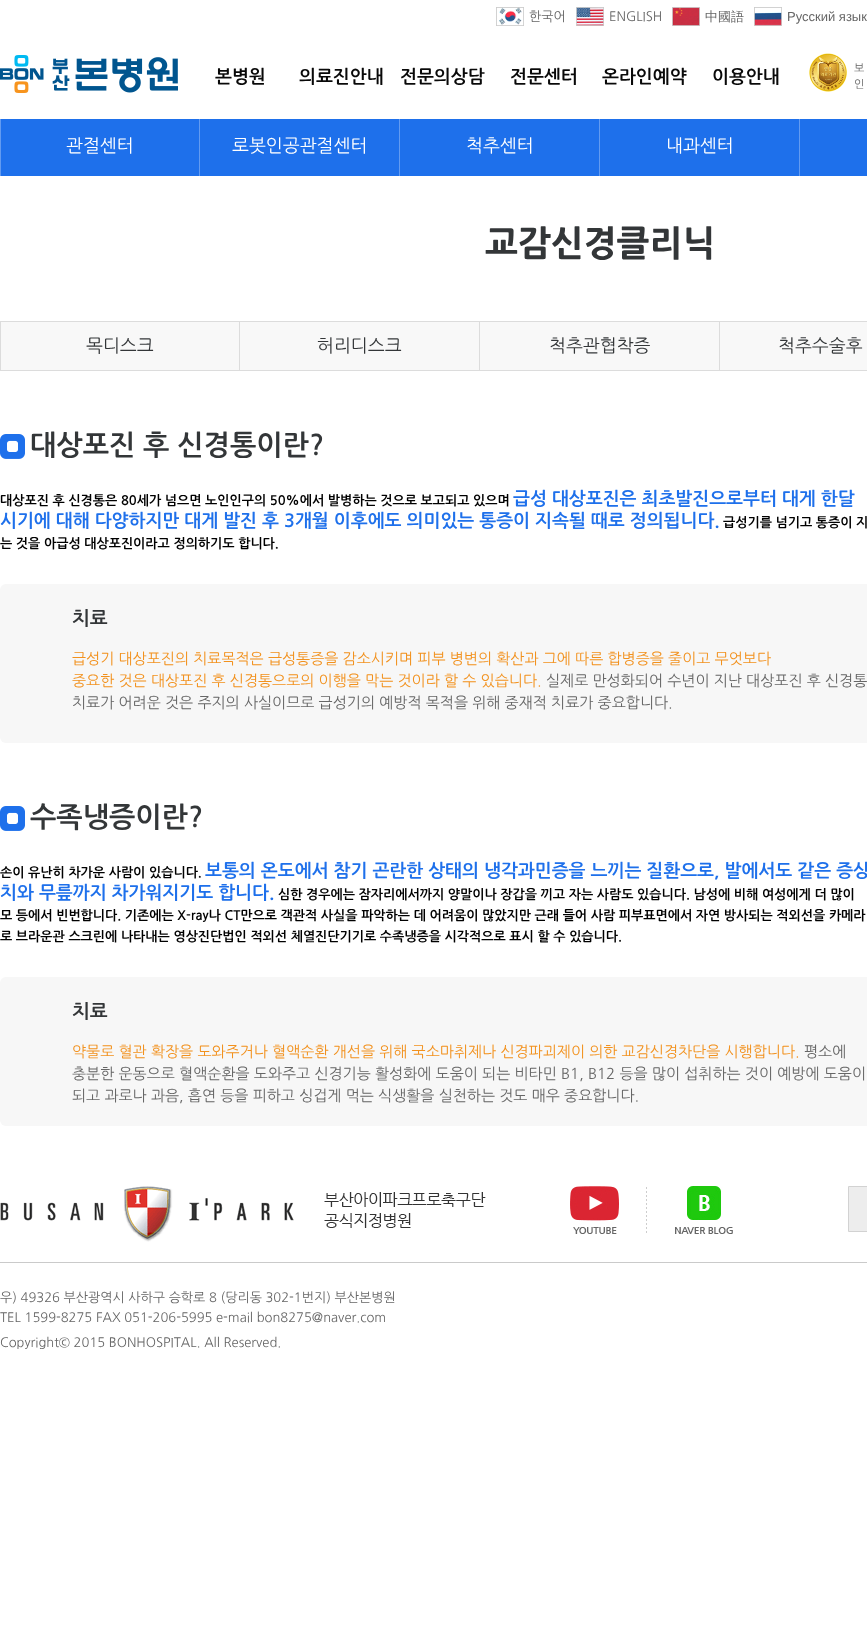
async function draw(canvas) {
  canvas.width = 867;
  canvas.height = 1640;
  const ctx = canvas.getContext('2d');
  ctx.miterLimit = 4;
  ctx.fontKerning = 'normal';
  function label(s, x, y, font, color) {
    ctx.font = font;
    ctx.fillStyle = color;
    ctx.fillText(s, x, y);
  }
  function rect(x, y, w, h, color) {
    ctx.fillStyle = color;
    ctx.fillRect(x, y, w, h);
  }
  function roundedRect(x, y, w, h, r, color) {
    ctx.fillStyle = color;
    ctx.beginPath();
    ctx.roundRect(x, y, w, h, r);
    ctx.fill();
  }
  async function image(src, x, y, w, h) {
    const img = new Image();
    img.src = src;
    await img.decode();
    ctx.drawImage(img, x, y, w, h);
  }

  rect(0, 0, 867, 1640, '#fff');
  await image('assets/img1.png', 496, 7, 28, 19);
  label('한국어', 529, 21, '13px NanumGothic', '#666');
  await image('assets/img2.png', 576, 7, 28, 19);
  label('ENGLISH', 609, 21, '13px NanumGothic', '#666');
  await image('assets/img3.png', 672, 7, 28, 19);
  label('中國語', 705, 21, '500 13px WenQuanYi Zen Hei', '#666');
  await image('assets/img4.png', 754, 7, 28, 19);
  label('Русский язык', 787, 21, '13px Liberation Sans', '#666');
  await image('assets/img5.png', 0, 55, 178, 38);
  label('본병원', 215, 83, 'bold 18px NanumGothic', '#090909');
  label('의료진안내', 299, 83, 'bold 18px NanumGothic', '#090909');
  label('전문의상담', 400, 83, 'bold 18px NanumGothic', '#090909');
  label('전문센터', 510, 83, 'bold 18px NanumGothic', '#090909');
  label('온라인예약', 602, 83, 'bold 18px NanumGothic', '#090909');
  label('이용안내', 712, 83, 'bold 18px NanumGothic', '#090909');
  await image('assets/img6.png', 809, 53, 38, 39);
  label('보', 854, 72, '11px NanumGothic', '#666');
  label('인', 854, 88, '11px NanumGothic', '#666');
  rect(1, 119, 866, 57, '#1e70eb');
  rect(199, 119, 1, 57, '#629bf1');
  rect(0, 119, 1, 57, '#629bf1');
  label('관절센터', 66, 152, '18px NanumGothic', '#fff');
  rect(399, 119, 1, 57, '#629bf1');
  label('로봇인공관절센터', 232, 152, '18px NanumGothic', '#fff');
  rect(599, 119, 1, 57, '#629bf1');
  label('척추센터', 466, 152, '18px NanumGothic', '#fff');
  rect(799, 119, 1, 57, '#629bf1');
  label('내과센터', 666, 152, '18px NanumGothic', '#fff');
  label('교감신경클리닉', 485, 256, '800 35px NanumGothic', '#333638');
  rect(0, 321, 867, 1, '#dcdcdc');
  rect(0, 370, 867, 1, '#dcdcdc');
  rect(239, 322, 1, 49, '#dcdcdc');
  rect(0, 322, 1, 49, '#dcdcdc');
  rect(1, 322, 238, 48, '#f8f8f8');
  label('목디스크', 86, 352, '18px NanumGothic', '#333638');
  rect(479, 322, 1, 49, '#dcdcdc');
  rect(240, 322, 239, 48, '#f8f8f8');
  label('허리디스크', 317, 352, '18px NanumGothic', '#333638');
  rect(719, 322, 1, 49, '#dcdcdc');
  rect(480, 322, 239, 48, '#f8f8f8');
  label('척추관협착증', 549, 352, '18px NanumGothic', '#333638');
  rect(720, 322, 147, 48, '#f8f8f8');
  label('척추수술후', 778, 352, '18px NanumGothic', '#333638');
  await image('assets/img7.png', 0, 434, 25, 25);
  label('대상포진 후 신경통이란?', 30, 455, 'bold 28px NanumGothic', '#333638');
  label('대상포진 후 신경통은 80세가 넘으면 노인인구의 50%에서 발병하는 것으로 보고되고 있으며', 0, 505, 'bold 13px NanumGothic', '#000');
  label('급성 대상포진은 최초발진으로부터 대게 한달', 513, 505, 'bold 18px NanumGothic', '#1e70eb');
  label('시기에 대해 다양하지만 대게 발진 후 3개월 이후에도 의미있는 통증이 지속될 때로 정의됩니다.', 0, 527, 'bold 18px NanumGothic', '#1e70eb');
  label('급성기를 넘기고 통증이 지', 723, 527, 'bold 13px NanumGothic', '#000');
  label('는 것을 아급성 대상포진이라고 정의하기도 합니다.', 0, 548, 'bold 13px NanumGothic', '#000');
  roundedRect(0, 584, 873, 159, 6, '#f7f7f7');
  label('치료', 72, 625, 'bold 19px NanumGothic', '#333638');
  label('급성기 대상포진의 치료목적은 급성통증을 감소시키며 피부 병변의 확산과 그에 따른 합병증을 줄이고 무엇보다', 72, 664, '15px NanumGothic', '#f2911d');
  label('중요한 것은 대상포진 후 신경통으로의 이행을 막는 것이라 할 수 있습니다.', 72, 686, '15px NanumGothic', '#f2911d');
  label('실제로 만성화되어 수년이 지난 대상포진 후 신경통', 546, 686, '15px NanumGothic', '#666');
  label('치료가 어려운 것은 주지의 사실이므로 급성기의 예방적 목적을 위해 중재적 치료가 중요합니다.', 72, 708, '15px NanumGothic', '#666');
  await image('assets/img7.png', 0, 806, 25, 25);
  label('수족냉증이란?', 30, 827, 'bold 28px NanumGothic', '#333638');
  label('손이 유난히 차가운 사람이 있습니다.', 0, 877, 'bold 13px NanumGothic', '#000');
  label('보통의 온도에서 참기 곤란한 상태의 냉각과민증을 느끼는 질환으로, 발에서도 같은 증상', 205, 877, 'bold 18px NanumGothic', '#1e70eb');
  label('치와 무릎까지 차가워지기도 합니다.', 0, 899, 'bold 18px NanumGothic', '#1e70eb');
  label('심한 경우에는 잠자리에서까지 양말이나 장갑을 끼고 자는 사람도 있습니다. 남성에 비해 여성에게 더 많이', 278, 899, 'bold 13px NanumGothic', '#000');
  label('모 등에서 빈번합니다. 기존에는 X-ray나 CT만으로 객관적 사실을 파악하는 데 어려움이 많았지만 근래 들어 사람 피부표면에서 자연 방사되는 적외선을 카메라', 0, 920, 'bold 13px NanumGothic', '#000');
  label('로 브라운관 스크린에 나타내는 영상진단법인 적외선 체열진단기기로 수족냉증을 시각적으로 표시 할 수 있습니다.', 0, 941, 'bold 13px NanumGothic', '#000');
  roundedRect(0, 977, 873, 149, 6, '#f7f7f7');
  label('치료', 72, 1018, 'bold 19px NanumGothic', '#333638');
  label('약물로 혈관 확장을 도와주거나 혈액순환 개선을 위해 국소마취제나 신경파괴제이 의한 교감신경차단을 시행합니다.', 72, 1057, '15px NanumGothic', '#f2911d');
  label('평소에', 804, 1057, '15px NanumGothic', '#666');
  label('충분한 운동으로 혈액순환을 도와주고 신경기능 활성화에 도움이 되는 비타민 B1, B12 등을 많이 섭취하는 것이 예방에 도움이', 72, 1079, '15px NanumGothic', '#666');
  label('되고 과로나 과음, 흡연 등을 피하고 싱겁게 먹는 식생활을 실천하는 것도 매우 중요합니다.', 72, 1101, '15px NanumGothic', '#666');
  await image('assets/img8.png', 0, 1186, 486, 56);
  ctx.fillStyle = '#ededed';
  ctx.beginPath();
  ctx.rect(848.5, 1186.5, 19, 45);
  ctx.fill();
  ctx.strokeStyle = '#d2d2d2';
  ctx.stroke();
  await image('assets/img9.png', 646, 1187, 1, 46);
  await image('assets/img10.png', 570, 1186, 49, 48);
  await image('assets/img11.png', 675, 1186, 58, 48);
  rect(0, 1262, 867, 1, '#cacaca');
  label('우) 49326 부산광역시 사하구 승학로 8 (당리동 302-1번지) 부산본병원', 0, 1302, '13px NanumGothic', '#666');
  label('TEL 1599-8275 FAX 051-206-5995 e-mail bon8275@naver.com', 0, 1322, '13px NanumGothic', '#666');
  label('Copyright© 2015 BONHOSPITAL. All Reserved.', 0, 1347, '13px NanumGothic', '#666');
}

draw(document.querySelector('canvas'));
